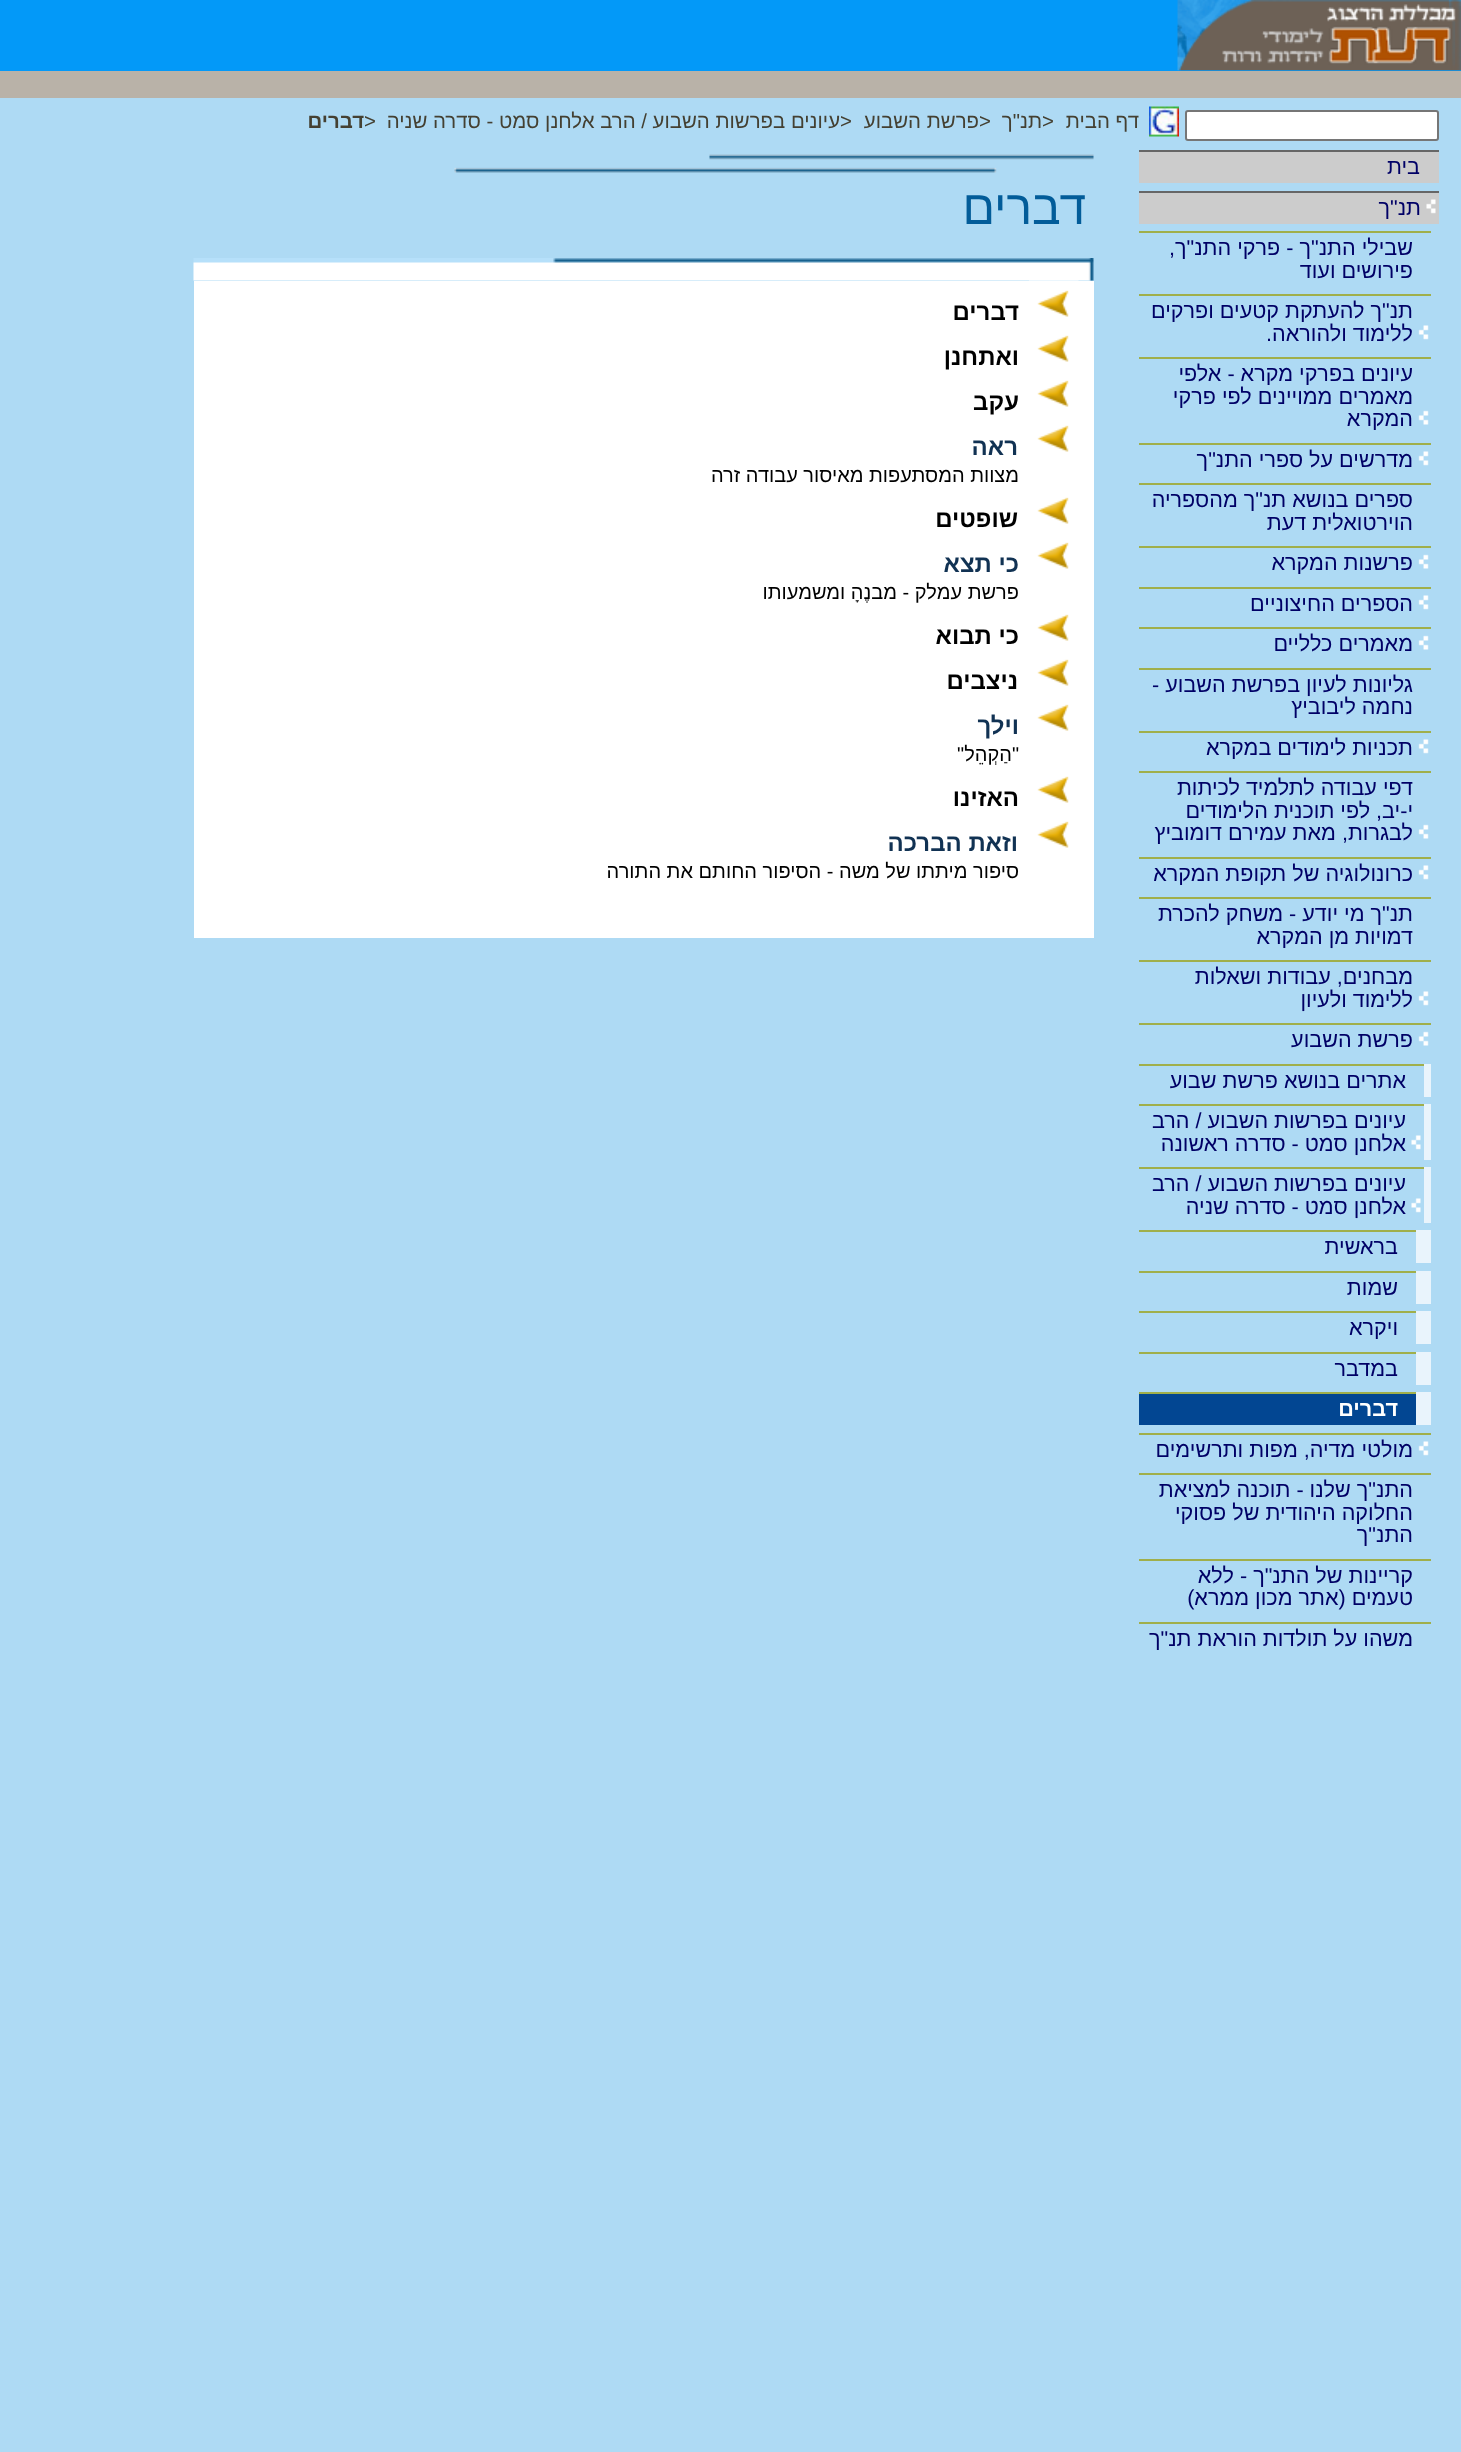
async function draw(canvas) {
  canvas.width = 1461;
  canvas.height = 2452;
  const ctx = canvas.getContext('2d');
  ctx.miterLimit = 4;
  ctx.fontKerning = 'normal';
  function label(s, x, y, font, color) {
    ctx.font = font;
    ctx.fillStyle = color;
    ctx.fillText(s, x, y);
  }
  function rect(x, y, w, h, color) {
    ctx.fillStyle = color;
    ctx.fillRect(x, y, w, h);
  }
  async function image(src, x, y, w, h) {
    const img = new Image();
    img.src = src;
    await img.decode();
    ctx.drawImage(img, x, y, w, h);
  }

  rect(0, 0, 1461, 2452, '#aedaf4');
  rect(0, 0, 1461, 71, '#0399f8');
  await image('assets/img1.png', 1177, 0, 284, 71);
  rect(0, 71, 1461, 27, '#b9b2a8');
  ctx.direction = 'rtl';
  label('דף הבית', 1139, 128, '20.4px Liberation Sans', '#444032');
  ctx.direction = 'ltr';
  label('>', 1042, 128, '20.4px Liberation Sans', '#444032');
  ctx.direction = 'rtl';
  label('תנ"ך', 1042, 128, '20.4px Liberation Sans', '#444032');
  ctx.direction = 'ltr';
  label('>', 979, 128, '20.4px Liberation Sans', '#444032');
  ctx.direction = 'rtl';
  label('פרשת השבוע', 979, 128, '20.4px Liberation Sans', '#444032');
  ctx.direction = 'ltr';
  label('>', 840, 128, '20.4px Liberation Sans', '#444032');
  ctx.direction = 'rtl';
  label('עיונים בפרשות השבוע / הרב אלחנן סמט - סדרה שניה', 840, 128, '20.4px Liberation Sans', '#444032');
  ctx.direction = 'ltr';
  label('>', 364, 128, '20.4px Liberation Sans', '#444032');
  ctx.direction = 'rtl';
  label('דברים', 364, 128, 'bold 20.4px Liberation Sans', '#444032');
  ctx.fillStyle = '#fff';
  ctx.beginPath();
  ctx.roundRect(1186, 111, 252, 29, 2);
  ctx.fill();
  ctx.strokeStyle = '#767676';
  ctx.lineWidth = 2;
  ctx.stroke();
  await image('assets/img2.png', 1149, 106, 30, 31);
  rect(1139, 152, 300, 31, '#ccc');
  rect(1139, 150, 300, 2, '#666');
  label('בית', 1420, 174, '21.6px Liberation Sans', '#006');
  rect(1139, 193, 300, 31, '#ccc');
  rect(1139, 191, 300, 2, '#666');
  await image('assets/img3.png', 1426, 199, 10, 15);
  label('תנ"ך', 1421, 215, '21.6px Liberation Sans', '#006');
  rect(1139, 231, 292, 2, '#a0af4b');
  label('שבילי התנ"ך - פרקי התנ"ך,', 1413, 255, '21.6px Liberation Sans', '#006');
  label('פירושים ועוד', 1413, 278, '21.6px Liberation Sans', '#006');
  rect(1139, 294, 292, 2, '#a0af4b');
  await image('assets/img4.png', 1418, 325, 11, 15);
  label('תנ"ך להעתקת קטעים ופרקים', 1413, 318, '21.6px Liberation Sans', '#006');
  label('ללימוד ולהוראה.', 1413, 341, '21.6px Liberation Sans', '#006');
  rect(1139, 357, 292, 2, '#a0af4b');
  await image('assets/img5.png', 1418, 410, 11, 15);
  label('עיונים בפרקי מקרא - אלפי', 1413, 381, '21.6px Liberation Sans', '#006');
  label('מאמרים ממויינים לפי פרקי', 1413, 404, '21.6px Liberation Sans', '#006');
  label('המקרא', 1413, 426, '21.6px Liberation Sans', '#006');
  rect(1139, 443, 292, 2, '#a0af4b');
  await image('assets/img4.png', 1418, 451, 11, 15);
  label('מדרשים על ספרי התנ"ך', 1413, 467, '21.6px Liberation Sans', '#006');
  rect(1139, 483, 292, 2, '#a0af4b');
  label('ספרים בנושא תנ"ך מהספריה', 1413, 507, '21.6px Liberation Sans', '#006');
  label('הוירטואלית דעת', 1413, 530, '21.6px Liberation Sans', '#006');
  rect(1139, 546, 292, 2, '#a0af4b');
  await image('assets/img5.png', 1418, 554, 11, 15);
  label('פרשנות המקרא', 1413, 570, '21.6px Liberation Sans', '#006');
  rect(1139, 587, 292, 2, '#a0af4b');
  await image('assets/img4.png', 1418, 595, 11, 15);
  label('הספרים החיצוניים', 1413, 611, '21.6px Liberation Sans', '#006');
  rect(1139, 627, 292, 2, '#a0af4b');
  await image('assets/img5.png', 1418, 635, 11, 15);
  label('מאמרים כלליים', 1413, 651, '21.6px Liberation Sans', '#006');
  rect(1139, 668, 292, 2, '#a0af4b');
  label('גליונות לעיון בפרשת השבוע -', 1413, 692, '21.6px Liberation Sans', '#006');
  label('נחמה ליבוביץ', 1413, 714, '21.6px Liberation Sans', '#006');
  rect(1139, 731, 292, 2, '#a0af4b');
  await image('assets/img4.png', 1418, 739, 11, 15);
  label('תכניות לימודים במקרא', 1413, 755, '21.6px Liberation Sans', '#006');
  rect(1139, 771, 292, 2, '#a0af4b');
  await image('assets/img5.png', 1418, 824, 11, 15);
  label('דפי עבודה לתלמיד לכיתות', 1413, 795, '21.6px Liberation Sans', '#006');
  label('י-יב, לפי תוכנית הלימודים', 1413, 818, '21.6px Liberation Sans', '#006');
  label('לבגרות, מאת עמירם דומוביץ', 1413, 840, '21.6px Liberation Sans', '#006');
  rect(1139, 857, 292, 2, '#a0af4b');
  await image('assets/img4.png', 1418, 865, 11, 15);
  label('כרונולוגיה של תקופת המקרא', 1413, 881, '21.6px Liberation Sans', '#006');
  rect(1139, 897, 292, 2, '#a0af4b');
  label('תנ"ך מי יודע - משחק להכרת', 1413, 921, '21.6px Liberation Sans', '#006');
  label('דמויות מן המקרא', 1413, 944, '21.6px Liberation Sans', '#006');
  rect(1139, 960, 292, 2, '#a0af4b');
  await image('assets/img4.png', 1418, 991, 11, 15);
  label('מבחנים, עבודות ושאלות', 1413, 984, '21.6px Liberation Sans', '#006');
  label('ללימוד ולעיון', 1413, 1007, '21.6px Liberation Sans', '#006');
  rect(1139, 1023, 292, 2, '#a0af4b');
  await image('assets/img5.png', 1418, 1031, 11, 15);
  label('פרשת השבוע', 1413, 1047, '21.6px Liberation Sans', '#006');
  rect(1424, 1064, 7, 361, '#e9f4fc');
  rect(1139, 1064, 285, 2, '#a0af4b');
  label('אתרים בנושא פרשת שבוע', 1406, 1088, '21.6px Liberation Sans', '#006');
  rect(1424, 1097, 7, 7, '#aedaf4');
  rect(1139, 1104, 285, 2, '#a0af4b');
  await image('assets/img6.png', 1411, 1135, 10, 15);
  label('עיונים בפרשות השבוע / הרב', 1406, 1128, '21.6px Liberation Sans', '#006');
  label('אלחנן סמט - סדרה ראשונה', 1406, 1151, '21.6px Liberation Sans', '#006');
  rect(1424, 1160, 7, 7, '#aedaf4');
  rect(1139, 1167, 285, 2, '#a0af4b');
  await image('assets/img6.png', 1411, 1198, 10, 15);
  label('עיונים בפרשות השבוע / הרב', 1406, 1191, '21.6px Liberation Sans', '#006');
  label('אלחנן סמט - סדרה שניה', 1406, 1214, '21.6px Liberation Sans', '#006');
  rect(1416, 1230, 8, 195, '#e9f4fc');
  rect(1424, 1223, 7, 7, '#aedaf4');
  rect(1139, 1230, 277, 2, '#a0af4b');
  label('בראשית', 1398, 1254, '21.6px Liberation Sans', '#006');
  rect(1416, 1263, 15, 8, '#aedaf4');
  rect(1139, 1271, 277, 2, '#a0af4b');
  label('שמות', 1398, 1295, '21.6px Liberation Sans', '#006');
  rect(1416, 1304, 15, 7, '#aedaf4');
  rect(1139, 1311, 277, 2, '#a0af4b');
  label('ויקרא', 1398, 1335, '21.6px Liberation Sans', '#006');
  rect(1416, 1344, 15, 8, '#aedaf4');
  rect(1139, 1352, 277, 2, '#a0af4b');
  label('במדבר', 1398, 1376, '21.6px Liberation Sans', '#006');
  rect(1416, 1385, 15, 7, '#aedaf4');
  rect(1139, 1394, 277, 31, '#024692');
  rect(1139, 1392, 277, 2, '#a0af4b');
  label('דברים', 1398, 1416, 'bold 21.6px Liberation Sans', '#fff');
  rect(1139, 1433, 292, 2, '#a0af4b');
  await image('assets/img4.png', 1418, 1441, 11, 15);
  label('מולטי מדיה, מפות ותרשימים', 1413, 1457, '21.6px Liberation Sans', '#006');
  rect(1139, 1473, 292, 2, '#a0af4b');
  label('התנ"ך שלנו - תוכנה למציאת', 1413, 1497, '21.6px Liberation Sans', '#006');
  label('החלוקה היהודית של פסוקי', 1413, 1520, '21.6px Liberation Sans', '#006');
  label('התנ"ך', 1413, 1542, '21.6px Liberation Sans', '#006');
  rect(1139, 1559, 292, 2, '#a0af4b');
  label('קריינות של התנ"ך - ללא', 1413, 1583, '21.6px Liberation Sans', '#006');
  label('טעמים (אתר מכון ממרא)', 1413, 1605, '21.6px Liberation Sans', '#006');
  rect(1139, 1622, 292, 2, '#a0af4b');
  label('משהו על תולדות הוראת תנ"ך', 1413, 1646, '21.6px Liberation Sans', '#006');
  await image('assets/img7.png', 454, 154, 640, 19);
  label('דברים', 1086, 224, '48px Liberation Sans', '#025c99');
  await image('assets/img8.png', 193, 258, 901, 23);
  rect(194, 281, 900, 657, '#fff');
  await image('assets/img9.png', 1029, 280, 50, 37);
  label('דברים', 1019, 320, 'bold 24px Liberation Sans', '#000');
  await image('assets/img10.png', 1037, 335, 32, 27);
  label('ואתחנן', 1019, 365, 'bold 24px Liberation Sans', '#000');
  await image('assets/img10.png', 1037, 380, 32, 27);
  label('עקב', 1019, 410, 'bold 24px Liberation Sans', '#000');
  await image('assets/img10.png', 1037, 425, 32, 27);
  label('ראה', 1018, 455, 'bold 24px Liberation Sans', '#113253');
  label('מצוות המסתעפות מאיסור עבודה זרה', 1019, 482, '20px Liberation Sans', '#000');
  await image('assets/img10.png', 1037, 497, 32, 27);
  label('שופטים', 1018, 527, 'bold 24px Liberation Sans', '#000');
  await image('assets/img10.png', 1037, 542, 32, 27);
  label('כי תצא', 1019, 572, 'bold 24px Liberation Sans', '#113253');
  label('פרשת עמלק - מבנֶהָ ומשמעותו', 1019, 599, '20px Liberation Sans', '#000');
  await image('assets/img10.png', 1037, 614, 32, 27);
  label('כי תבוא', 1019, 644, 'bold 24px Liberation Sans', '#000');
  await image('assets/img10.png', 1037, 659, 32, 27);
  label('ניצבים', 1018, 689, 'bold 24px Liberation Sans', '#000');
  await image('assets/img10.png', 1037, 704, 32, 27);
  label('וילך', 1019, 734, 'bold 24px Liberation Sans', '#113253');
  label('"הַקְהֵל"', 1019, 761, '20px Liberation Sans', '#000');
  await image('assets/img10.png', 1037, 776, 32, 27);
  label('האזינו', 1019, 806, 'bold 24px Liberation Sans', '#000');
  await image('assets/img10.png', 1037, 821, 32, 27);
  label('וזאת הברכה', 1018, 851, 'bold 24px Liberation Sans', '#113253');
  label('סיפור מיתתו של משה - הסיפור החותם את התורה', 1019, 878, '20px Liberation Sans', '#000');
}

draw(document.querySelector('canvas'));
